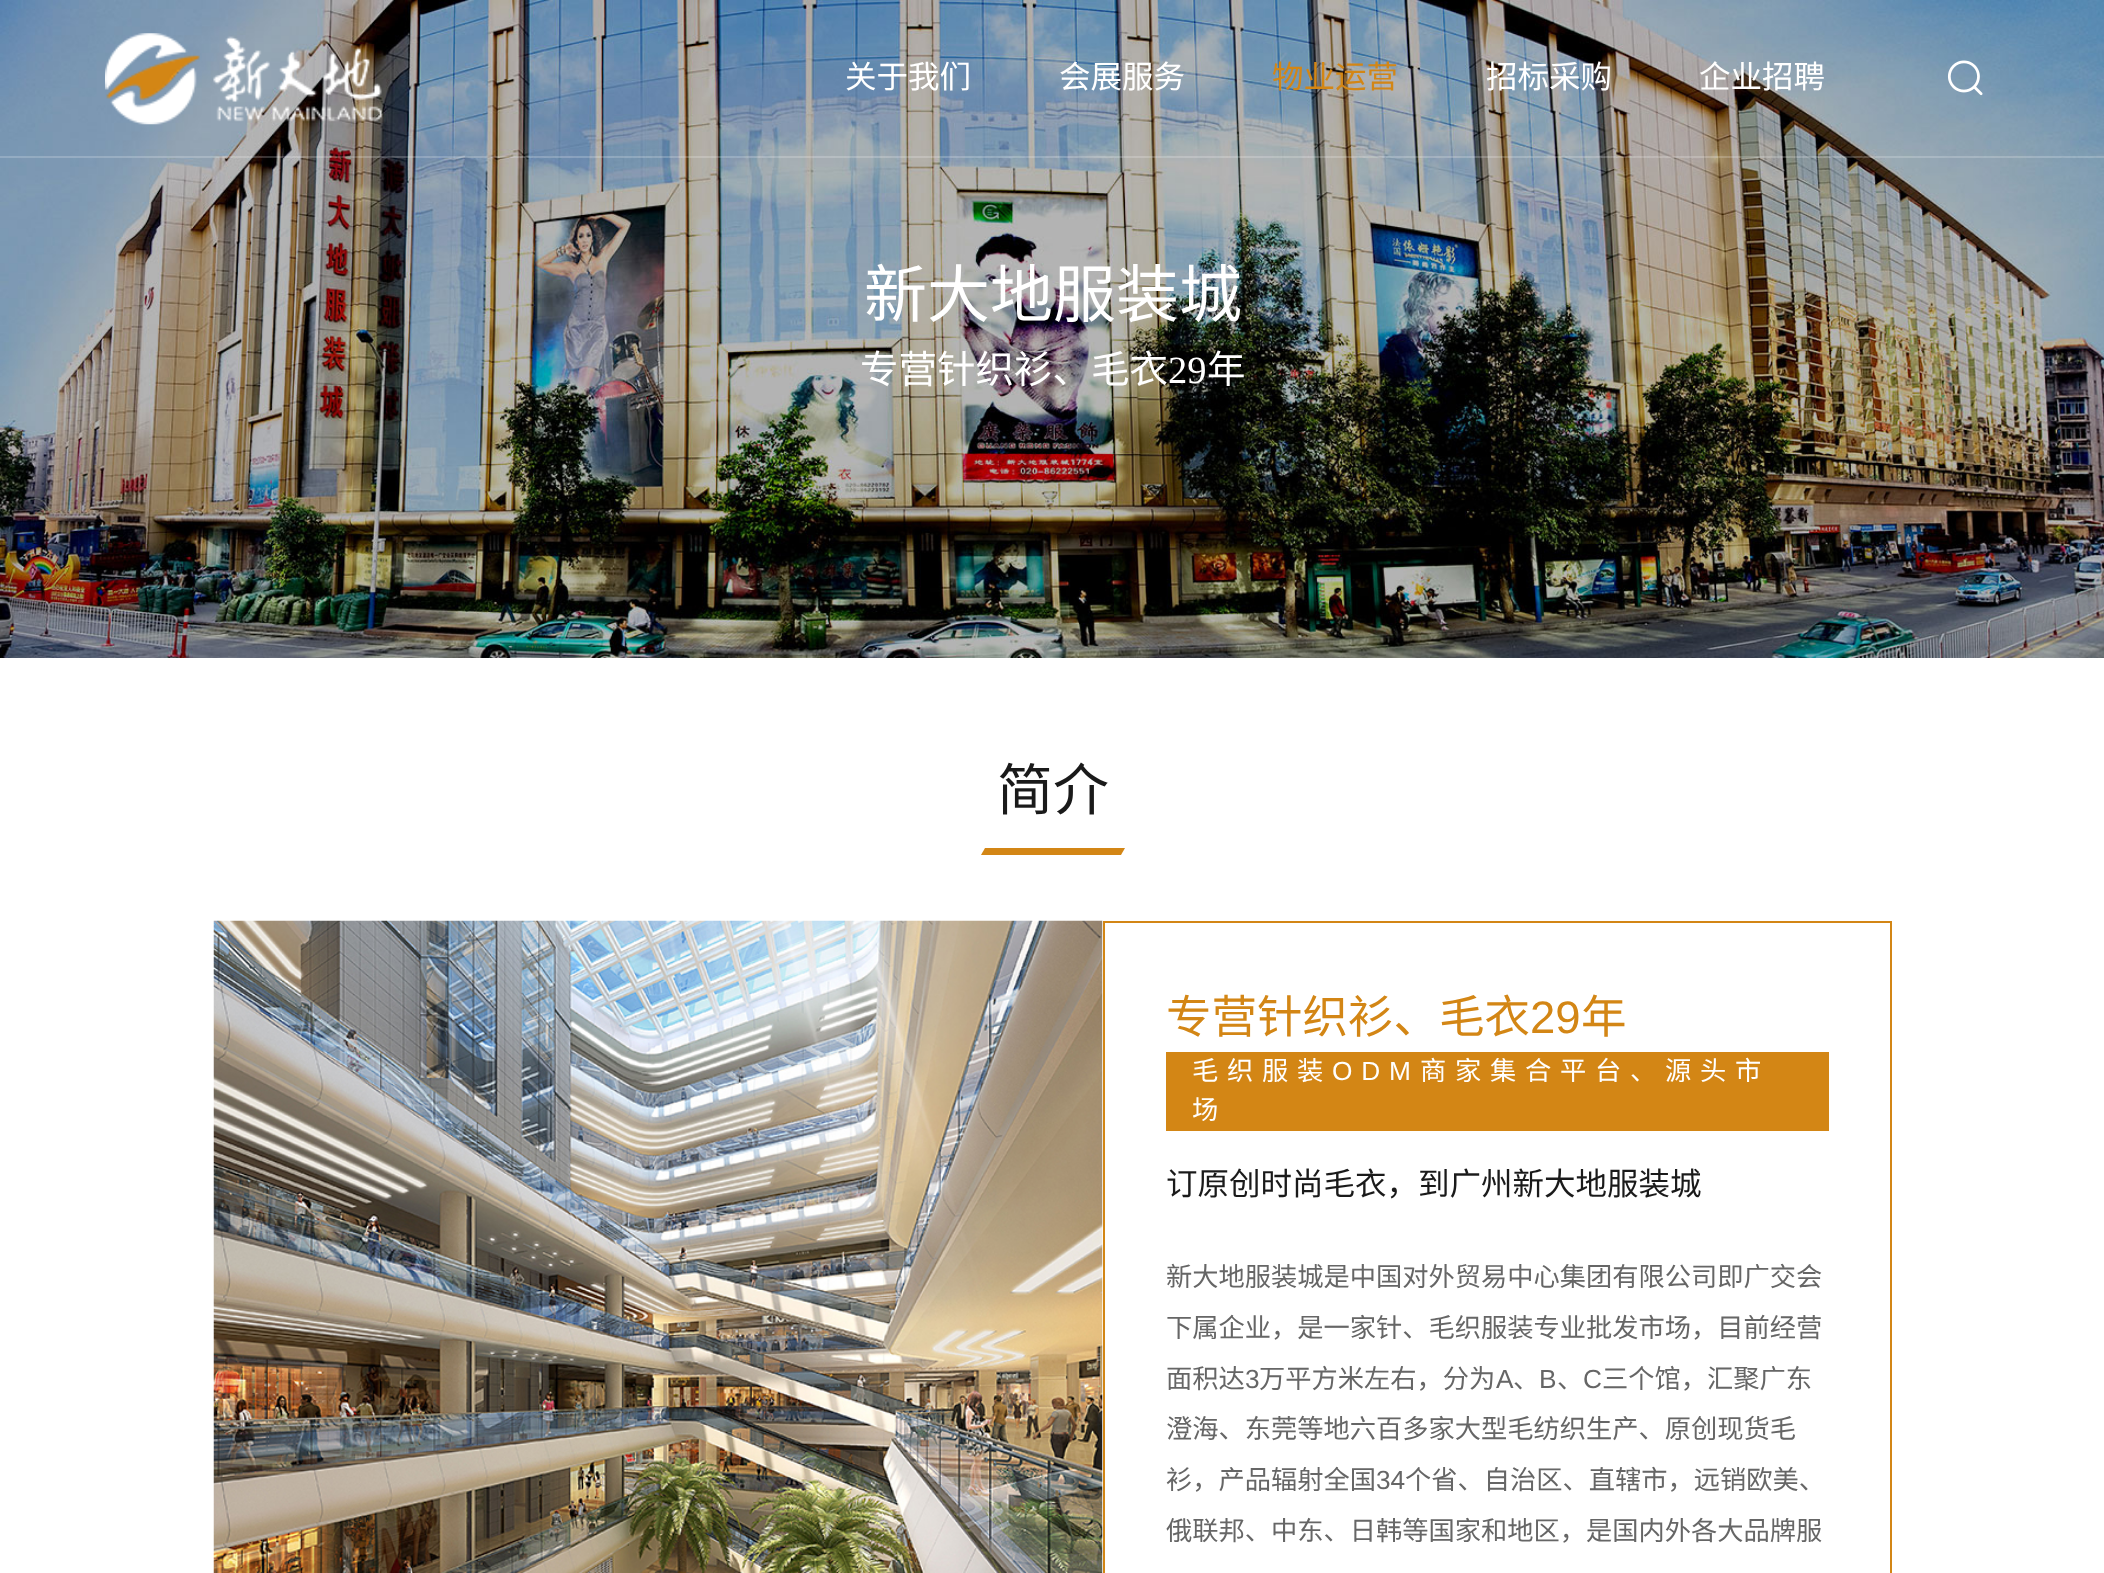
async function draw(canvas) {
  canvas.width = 2104;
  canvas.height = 1573;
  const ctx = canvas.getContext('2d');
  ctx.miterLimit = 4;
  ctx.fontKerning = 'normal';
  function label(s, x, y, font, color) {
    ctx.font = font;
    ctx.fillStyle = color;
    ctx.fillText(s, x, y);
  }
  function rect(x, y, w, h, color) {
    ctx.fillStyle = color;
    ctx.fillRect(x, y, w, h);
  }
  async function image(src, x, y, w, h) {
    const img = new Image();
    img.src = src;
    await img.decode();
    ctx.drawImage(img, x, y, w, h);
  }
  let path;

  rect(0, 0, 2104, 1573, '#fff');
  await image('assets/img3.png', 0, 0, 2104, 658);
  await image('assets/img1.png', 105, 33, 277, 92);
  label('关于我们', 845, 88, '31.5px Noto Sans CJK SC', '#fff');
  label('会展服务', 1059, 88, '31.5px Noto Sans CJK SC', '#fff');
  label('物业运营', 1272, 88, '31.5px Noto Sans CJK SC', '#d38615');
  label('招标采购', 1486, 88, '31.5px Noto Sans CJK SC', '#fff');
  label('企业招聘', 1699, 88, '31.5px Noto Sans CJK SC', '#fff');
  await image('assets/img2.png', 1947, 60, 36, 36);
  rect(0, 156, 2104, 2, '#ffffff33');
  label('新大地服装城', 864, 317, '63px Noto Sans CJK SC', '#fff');
  label('专营针织衫、毛衣', 860, 383, '38.5px Noto Sans CJK SC', '#fff');
  label('29', 1168, 383, '38.5px Liberation Serif', '#fff');
  label('年', 1207, 383, '38.5px Noto Sans CJK SC', '#fff');
  label('简介', 997, 810, '56px Noto Sans CJK SC', '#1a1a1a');
  ctx.fillStyle = '#d38615';
  path = new Path2D('M985 848H1125L1121 855H981Z');
  ctx.fill(path);
  await image('assets/img4.png', 213, 920, 890, 653);
  ctx.strokeStyle = '#d38615';
  ctx.lineWidth = 2;
  ctx.strokeRect(1104, 922, 787, 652);
  label('专营针织衫、毛衣', 1166, 1033, '45.5px Noto Sans CJK SC', '#d38615');
  label('29', 1530, 1033, '45.5px Liberation Sans', '#d38615');
  label('年', 1581, 1033, '45.5px Noto Sans CJK SC', '#d38615');
  rect(1166, 1052, 663, 79, '#d38615');
  ctx.letterSpacing = '8.75px';
  label('毛织服装', 1192, 1080, '26.25px Noto Sans CJK SC', '#fff');
  label('ODM', 1332, 1080, '26.25px Liberation Sans', '#fff');
  label('商家集合平台、源头市', 1420, 1080, '26.25px Noto Sans CJK SC', '#fff');
  label('场', 1192, 1119, '26.25px Noto Sans CJK SC', '#fff');
  ctx.letterSpacing = '0px';
  label('订原创时尚毛衣，到广州新大地服装城', 1166, 1195, '31.5px Noto Sans CJK SC', '#1a1a1a');
  label('新大地服装城是中国对外贸易中心集团有限公司即广交会', 1166, 1286, '26.25px Noto Sans CJK SC', '#666');
  label('下属企业，是一家针、毛织服装专业批发市场，目前经营', 1166, 1337, '26.25px Noto Sans CJK SC', '#666');
  label('面积达', 1166, 1388, '26.25px Noto Sans CJK SC', '#666');
  label('3', 1245, 1388, '26.25px Liberation Sans', '#666');
  label('万平方米左右，分为', 1259, 1388, '26.25px Noto Sans CJK SC', '#666');
  label('A', 1496, 1388, '26.25px Liberation Sans', '#666');
  label('、', 1513, 1388, '26.25px Noto Sans CJK SC', '#666');
  label('B', 1539, 1388, '26.25px Liberation Sans', '#666');
  label('、', 1557, 1388, '26.25px Noto Sans CJK SC', '#666');
  label('C', 1583, 1388, '26.25px Liberation Sans', '#666');
  label('三个馆，汇聚广东', 1602, 1388, '26.25px Noto Sans CJK SC', '#666');
  label('澄海、东莞等地六百多家大型毛纺织生产、原创现货毛', 1166, 1438, '26.25px Noto Sans CJK SC', '#666');
  label('衫，产品辐射全国', 1166, 1489, '26.25px Noto Sans CJK SC', '#666');
  label('34', 1376, 1489, '26.25px Liberation Sans', '#666');
  label('个省、自治区、直辖市，远销欧美、', 1405, 1489, '26.25px Noto Sans CJK SC', '#666');
  label('俄联邦、中东、日韩等国家和地区，是国内外各大品牌服', 1166, 1540, '26.25px Noto Sans CJK SC', '#666');
}

draw(document.querySelector('canvas'));
